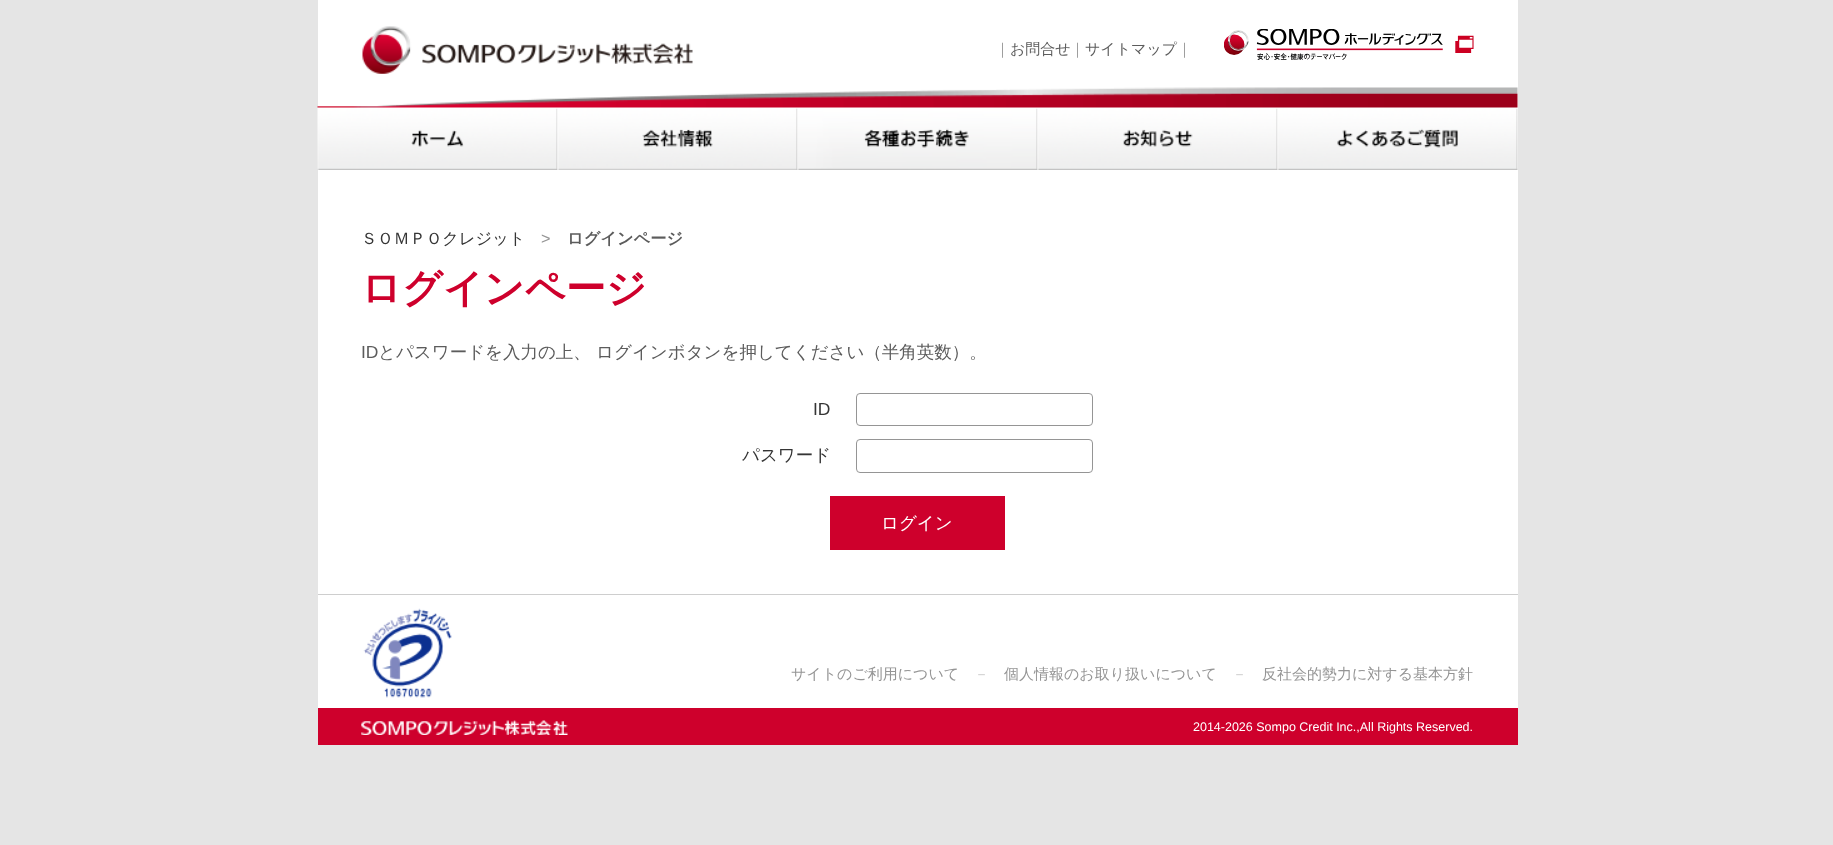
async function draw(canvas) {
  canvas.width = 1833;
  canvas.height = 845;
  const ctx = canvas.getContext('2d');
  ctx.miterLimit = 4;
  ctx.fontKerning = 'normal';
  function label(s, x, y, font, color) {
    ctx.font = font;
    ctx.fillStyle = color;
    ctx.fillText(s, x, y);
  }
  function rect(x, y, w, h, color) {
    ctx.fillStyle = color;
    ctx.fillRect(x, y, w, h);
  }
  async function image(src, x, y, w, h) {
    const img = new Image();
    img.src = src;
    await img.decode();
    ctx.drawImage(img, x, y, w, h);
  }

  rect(0, 0, 1833, 845, '#e5e5e5');
  rect(318, 0, 1200, 708, '#fff');
  await image('assets/img1.png', 362, 26, 331, 48);
  label('｜', 995, 54, '500 15px WenQuanYi Zen Hei', '#959595');
  label('お問合せ', 1010, 54, '500 15px WenQuanYi Zen Hei', '#5c5c5c');
  label('｜', 1070, 54, '500 15px WenQuanYi Zen Hei', '#959595');
  label('サイトマップ', 1085, 54, '500 15px WenQuanYi Zen Hei', '#5c5c5c');
  label('｜', 1177, 54, '500 15px WenQuanYi Zen Hei', '#959595');
  await image('assets/img2.png', 1224, 29, 250, 31);
  await image('assets/img4.png', 317, 107, 241, 63);
  await image('assets/img3.png', 317, 87, 1201, 21);
  await image('assets/img5.png', 557, 108, 241, 62);
  await image('assets/img6.png', 797, 108, 241, 62);
  await image('assets/img7.png', 1037, 108, 241, 62);
  await image('assets/img8.png', 1277, 108, 241, 62);
  label('ＳＯＭＰＯクレジット', 361, 244, '500 16.25px WenQuanYi Zen Hei', '#353535');
  label('>', 541, 244, '16.25px Liberation Sans', '#959595');
  label('ログインページ', 567, 244, 'bold 16.25px WenQuanYi Zen Hei', '#5c5c5c');
  label('ログインページ', 361, 302, 'bold 40px WenQuanYi Zen Hei', '#ce002c');
  label('ID', 361, 358, '17.5px Liberation Sans', '#5c5c5c');
  label('とパスワードを入力の上、 ログインボタンを押してください（半角英数）。', 378, 358, '500 17.5px WenQuanYi Zen Hei', '#5c5c5c');
  label('ID', 813, 415, '17.5px Liberation Sans', '#353535');
  ctx.beginPath();
  ctx.roundRect(856.5, 393.5, 236, 32, 3.5);
  ctx.strokeStyle = '#959595';
  ctx.stroke();
  label('パスワード', 742, 461, '500 17.5px WenQuanYi Zen Hei', '#353535');
  ctx.beginPath();
  ctx.roundRect(856.5, 439.5, 236, 33, 3.5);
  ctx.stroke();
  rect(830, 496, 175, 54, '#ce002c');
  label('ログイン', 881, 529, '500 17.5px WenQuanYi Zen Hei', '#fff');
  rect(318, 594, 1200, 1, '#cecece');
  await image('assets/img9.png', 363, 608, 89, 90);
  label('サイトのご利用について', 791, 679, '500 15px WenQuanYi Zen Hei', '#959595');
  label('－', 974, 679, '500 15px WenQuanYi Zen Hei', '#ccc');
  label('個人情報のお取り扱いについて', 1004, 679, '500 15px WenQuanYi Zen Hei', '#959595');
  label('－', 1232, 679, '500 15px WenQuanYi Zen Hei', '#ccc');
  label('反社会的勢力に対する基本方針', 1262, 679, '500 15px WenQuanYi Zen Hei', '#959595');
  rect(318, 708, 1200, 37, '#ce002c');
  await image('assets/img10.png', 361, 720, 207, 15);
  label('2014-2026 Sompo Credit Inc.,All Rights Reserved.', 1193, 731, '12.5px Liberation Sans', '#fff');
}

draw(document.querySelector('canvas'));
